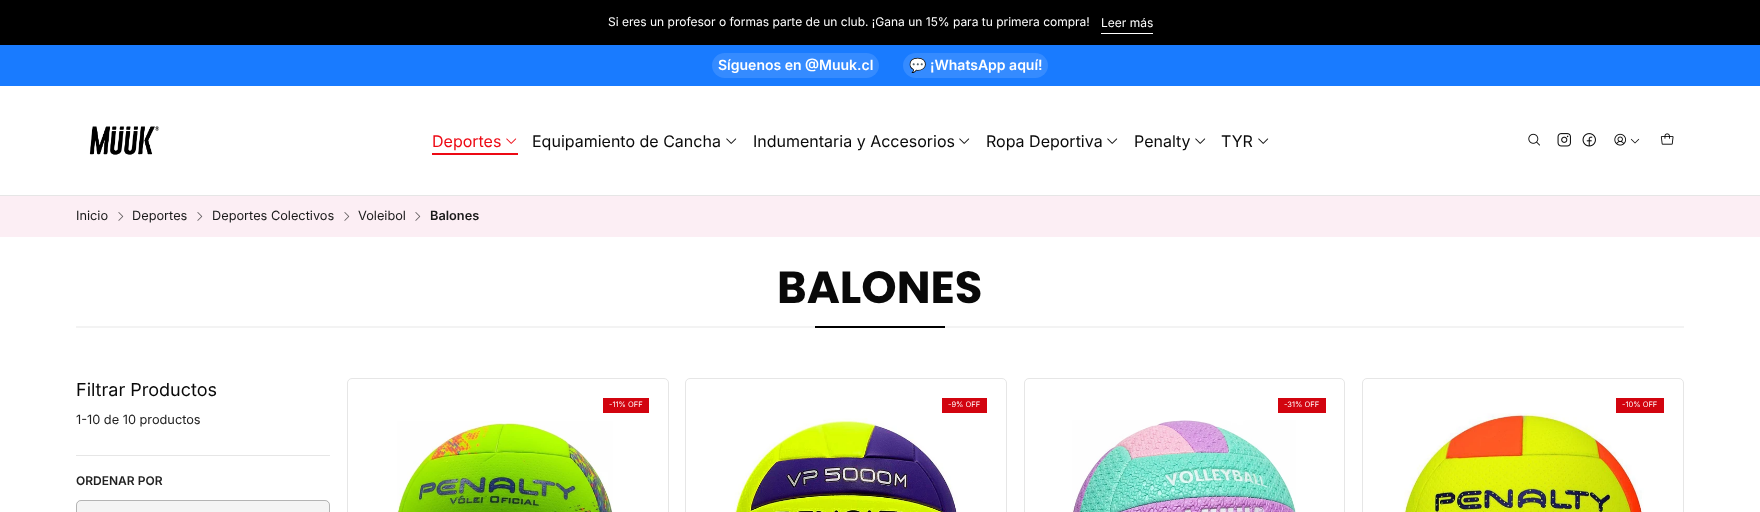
async function draw(canvas) {
  canvas.width = 1760;
  canvas.height = 512;
  const ctx = canvas.getContext('2d');
  ctx.miterLimit = 4;
  ctx.fontKerning = 'normal';
  function label(s, x, y, font, color) {
    ctx.font = font;
    ctx.fillStyle = color;
    ctx.fillText(s, x, y);
  }
  function rect(x, y, w, h, color) {
    ctx.fillStyle = color;
    ctx.fillRect(x, y, w, h);
  }
  function roundedRect(x, y, w, h, r, color) {
    ctx.fillStyle = color;
    ctx.beginPath();
    ctx.roundRect(x, y, w, h, r);
    ctx.fill();
  }
  async function image(src, x, y, w, h) {
    const img = new Image();
    img.src = src;
    await img.decode();
    ctx.drawImage(img, x, y, w, h);
  }

  rect(0, 0, 1760, 512, '#fff');
  rect(76, 326, 1608, 2, '#f3f3f3');
  rect(0, 0, 1760, 45, '#000');
  label('Si eres un profesor o formas parte de un club. ¡Gana un 15% para tu primera compra!', 608, 26, '12px Inter', '#fff');
  rect(1101, 33, 52, 1, '#fff');
  label('Leer más', 1101, 27, '12px Inter', '#fff');
  rect(0, 195, 1760, 1, '#e6e6e6');
  rect(0, 45, 1760, 41, '#197bff');
  roundedRect(712, 53, 167, 25, 12.5, '#358bff');
  label('Síguenos en @Muuk.cl', 718, 70, '600 14px Inter', '#fff');
  roundedRect(903, 53, 145, 25, 12.5, '#358bff');
  label('💬', 909, 70, 'bold 14px Noto Color Emoji', '#fff');
  label('¡WhatsApp aquí!', 930, 70, '600 14px Inter', '#fff');
  await image('assets/img1.png', 89, 126, 71, 29);
  label('Deportes', 432, 147, '16px Inter', '#ed0914');
  await image('assets/img2.png', 506, 138, 11, 6);
  rect(432, 153, 86, 2, '#ed0914');
  label('Equipamiento de Cancha', 532, 147, '16px Inter', '#090909');
  await image('assets/img3.png', 726, 138, 11, 6);
  label('Indumentaria y Accesorios', 753, 147, '16px Inter', '#090909');
  await image('assets/img3.png', 959, 138, 11, 6);
  label('Ropa Deportiva', 986, 147, '16px Inter', '#090909');
  await image('assets/img3.png', 1107, 138, 11, 6);
  label('Penalty', 1134, 147, '16px Inter', '#090909');
  await image('assets/img3.png', 1195, 138, 11, 6);
  label('TYR', 1221, 147, '16px Inter', '#090909');
  await image('assets/img3.png', 1258, 138, 11, 6);
  await image('assets/img4.png', 1528, 133, 12, 13);
  await image('assets/img5.png', 1557, 133, 14, 14);
  await image('assets/img6.png', 1582, 133, 14, 14);
  await image('assets/img7.png', 1614, 133, 13, 13);
  await image('assets/img8.png', 1630, 138, 10, 6);
  await image('assets/img9.png', 1660, 133, 14, 12);
  rect(0, 196, 1760, 41, '#fceef4');
  label('Inicio', 76, 220, '12.75px Inter', '#191919');
  await image('assets/img10.png', 118, 212, 6, 9);
  label('Deportes', 132, 220, '12.75px Inter', '#191919');
  await image('assets/img10.png', 197, 212, 6, 9);
  label('Deportes Colectivos', 212, 220, '12.75px Inter', '#191919');
  await image('assets/img10.png', 344, 212, 6, 9);
  label('Voleibol', 358, 220, '12.75px Inter', '#191919');
  await image('assets/img10.png', 415, 212, 6, 9);
  label('Balones', 430, 220, '600 12.75px Inter', '#191919');
  label('BALONES', 777, 303, 'bold 45px Poppins', '#090909');
  rect(815, 326, 130, 2, '#000');
  label('Filtrar Productos', 76, 396, '18px Inter', '#090909');
  label('1-10 de 10 productos', 76, 424, '12.75px Inter', '#222');
  rect(76, 455, 254, 1, '#e6e6e6');
  label('ORDENAR POR', 76, 485, '600 12px Inter', '#222');
  roundedRect(76, 500, 254, 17, 5, '#f4f4f4');
  ctx.beginPath();
  ctx.roundRect(76.5, 500.5, 253, 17, 4.5);
  ctx.strokeStyle = '#2222224d';
  ctx.stroke();
  ctx.beginPath();
  ctx.roundRect(347.5, 378.5, 321, 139, 4.5);
  ctx.strokeStyle = '#e6e6e6';
  ctx.stroke();
  rect(603, 398, 46, 15, '#d2040f');
  label('-11% OFF', 609, 407, '7.5px Inter', '#fff');
  await image('assets/img11.png', 397, 421, 216, 91);
  ctx.beginPath();
  ctx.roundRect(685.5, 378.5, 321, 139, 4.5);
  ctx.stroke();
  rect(942, 398, 45, 15, '#d2040f');
  label('-9% OFF', 948, 407, '7.5px Inter', '#fff');
  await image('assets/img12.png', 734, 418, 224, 94);
  ctx.beginPath();
  ctx.roundRect(1024.5, 378.5, 320, 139, 4.5);
  ctx.stroke();
  rect(1278, 398, 48, 15, '#d2040f');
  label('-31% OFF', 1284, 407, '7.5px Inter', '#fff');
  await image('assets/img13.png', 1072, 420, 224, 92);
  ctx.beginPath();
  ctx.roundRect(1362.5, 378.5, 321, 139, 4.5);
  ctx.stroke();
  rect(1616, 398, 48, 15, '#d2040f');
  label('-10% OFF', 1622, 407, '7.5px Inter', '#fff');
  await image('assets/img14.png', 1403, 413, 241, 99);
}

draw(document.querySelector('canvas'));
